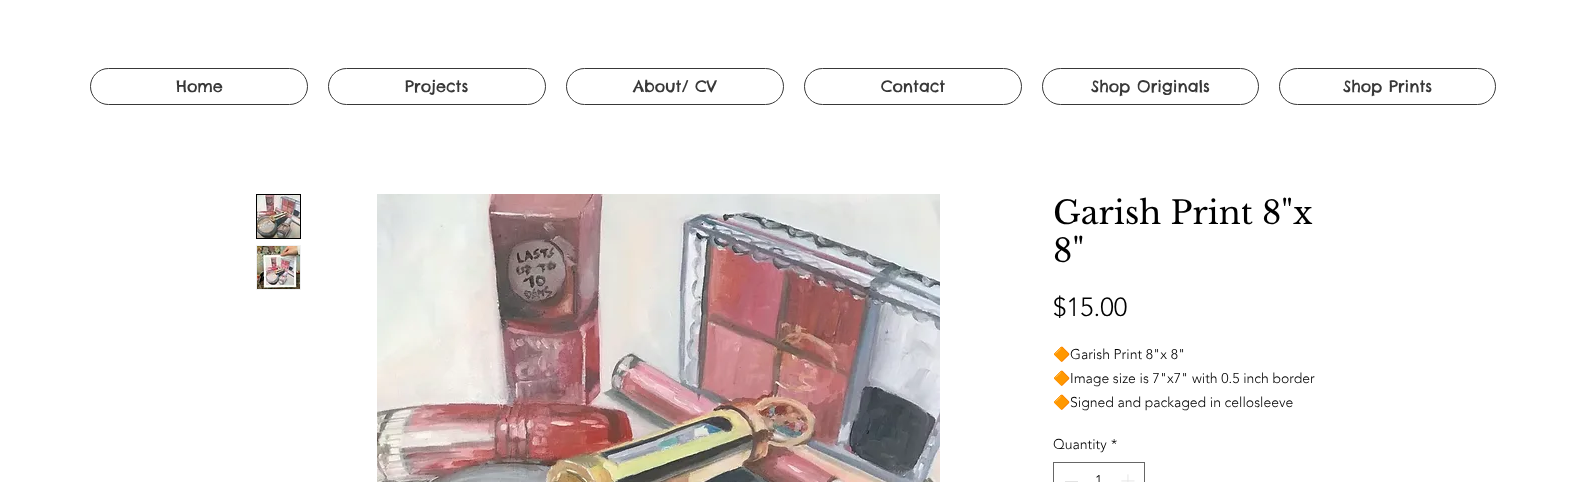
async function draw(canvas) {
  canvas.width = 1586;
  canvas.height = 482;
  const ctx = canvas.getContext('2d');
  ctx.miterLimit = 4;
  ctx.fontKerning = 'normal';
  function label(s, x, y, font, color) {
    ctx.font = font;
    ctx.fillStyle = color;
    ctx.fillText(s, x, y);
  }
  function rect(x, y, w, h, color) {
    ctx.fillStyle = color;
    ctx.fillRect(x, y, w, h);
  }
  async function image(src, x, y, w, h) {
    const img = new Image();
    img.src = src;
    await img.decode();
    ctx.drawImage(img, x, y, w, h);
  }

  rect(0, 0, 1586, 482, '#fff');
  ctx.beginPath();
  ctx.roundRect(90.5, 68.5, 217, 36, 18);
  ctx.strokeStyle = '#383838';
  ctx.stroke();
  label('Home', 176, 92, '16px Chelsea Market', '#383838');
  ctx.beginPath();
  ctx.roundRect(328.5, 68.5, 217, 36, 18);
  ctx.stroke();
  label('Projects', 405, 92, '16px Chelsea Market', '#383838');
  ctx.beginPath();
  ctx.roundRect(566.5, 68.5, 217, 36, 18);
  ctx.stroke();
  label('About/ CV', 633, 92, '16px Chelsea Market', '#383838');
  ctx.beginPath();
  ctx.roundRect(804.5, 68.5, 217, 36, 18);
  ctx.stroke();
  label('Contact', 881, 92, '16px Chelsea Market', '#383838');
  ctx.beginPath();
  ctx.roundRect(1042.5, 68.5, 216, 36, 18);
  ctx.stroke();
  label('Shop Originals', 1091, 92, '16px Chelsea Market', '#383838');
  ctx.beginPath();
  ctx.roundRect(1279.5, 68.5, 216, 36, 18);
  ctx.stroke();
  label('Shop Prints', 1343, 92, '16px Chelsea Market', '#383838');
  ctx.strokeStyle = '#000';
  ctx.strokeRect(256.5, 194.5, 44, 44);
  await image('assets/img1.png', 257, 195, 43, 43);
  rect(256, 245, 45, 45, '#f0f1f2');
  await image('assets/img2.png', 257, 246, 43, 43);
  await image('assets/img3.png', 377, 194, 563, 288);
  label('Garish Print 8"x', 1053, 224, '32px Libre Baskerville', '#000');
  label('8"', 1053, 262, '32px Libre Baskerville', '#000');
  label('$15.00', 1053, 316, '300 26px "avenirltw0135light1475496"', '#000');
  label('🔶', 1053, 359, '14px Noto Color Emoji', '#000');
  label('Garish Print 8"x 8"', 1070, 359, '300 14px "avenirltw0135light1475496"', '#000');
  label('🔶', 1053, 383, '14px Noto Color Emoji', '#000');
  label('Image size is 7"x7" with 0.5 inch border', 1070, 383, '300 14px "avenirltw0135light1475496"', '#000');
  label('🔶', 1053, 407, '14px Noto Color Emoji', '#000');
  label('Signed and packaged in cellosleeve', 1070, 407, '300 14px "avenirltw0135light1475496"', '#000');
  label('Quantity', 1053, 449, '300 14px "avenirltw0135light1475496"', '#000');
  label('*', 1111, 449, '300 14px "avenirltw0135light1475496"', '#000');
  ctx.strokeStyle = '#666';
  ctx.strokeRect(1053.5, 462.5, 91, 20);
  rect(1065, 481, 13, 1, '#e3e3e3');
  label('1', 1095, 485, '300 14px "avenirltw0135light1475496"', '#000');
  await image('assets/img4.png', 1121, 474, 14, 8);
}

draw(document.querySelector('canvas'));
